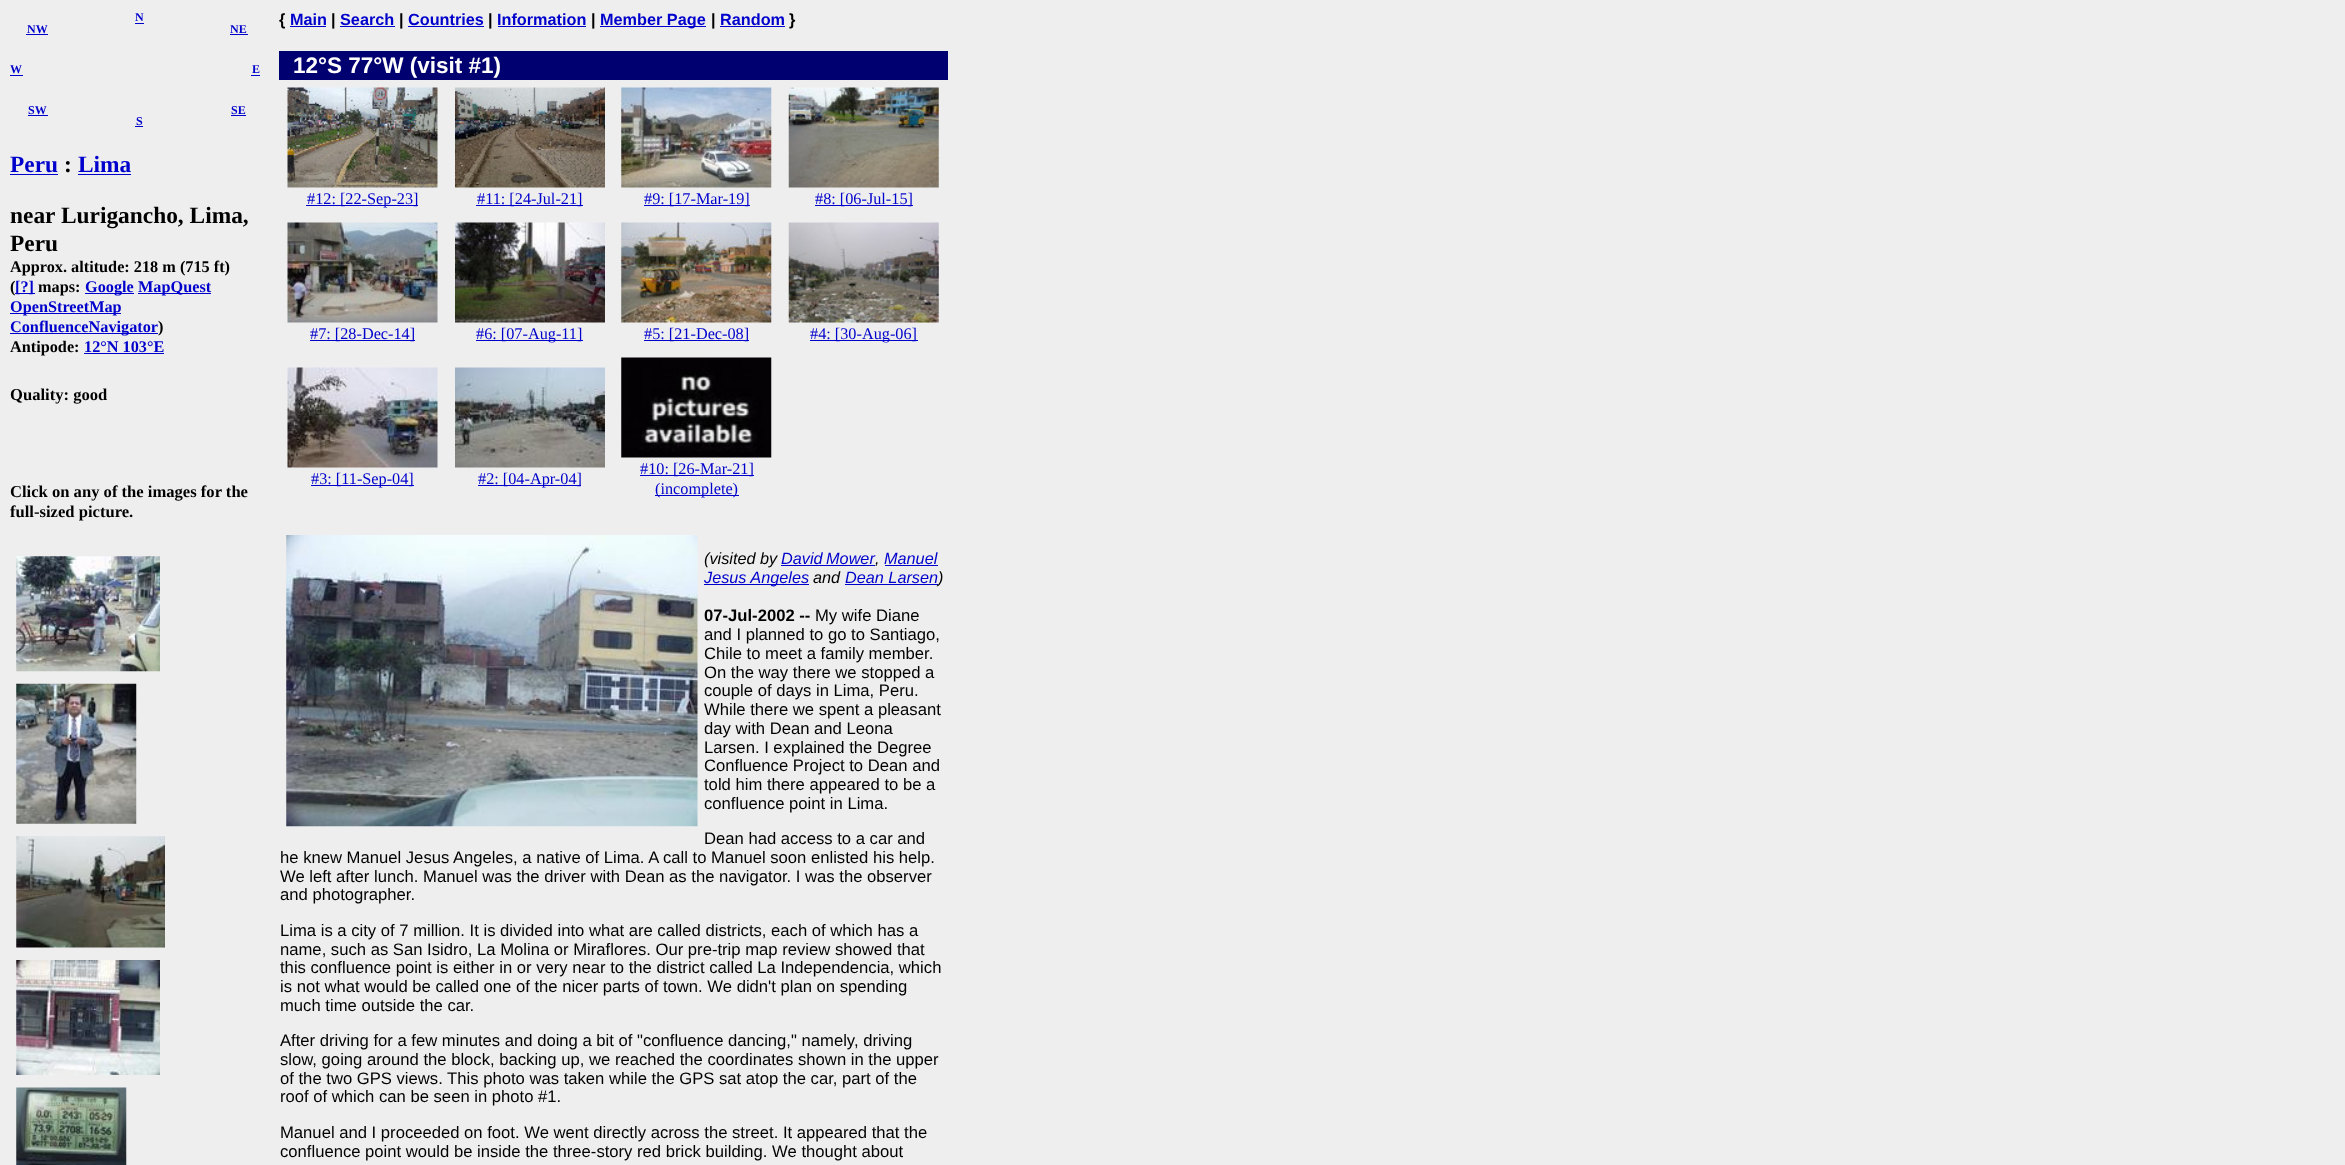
async function draw(canvas) {
  canvas.width = 2345;
  canvas.height = 1165;
  const ctx = canvas.getContext('2d');
  ctx.miterLimit = 4;
  ctx.fontKerning = 'normal';
  function label(s, x, y, font, color) {
    ctx.font = font;
    ctx.fillStyle = color;
    ctx.fillText(s, x, y);
  }
  function rect(x, y, w, h, color) {
    ctx.fillStyle = color;
    ctx.fillRect(x, y, w, h);
  }
  async function image(src, x, y, w, h) {
    const img = new Image();
    img.src = src;
    await img.decode();
    ctx.drawImage(img, x, y, w, h);
  }

  rect(0, 0, 2345, 1165, '#eee');
  label('W', 10, 73, 'bold 12px Liberation Serif', '#00c');
  rect(10, 75, 13, 1, '#00c');
  label('N', 135, 21, 'bold 12px Liberation Serif', '#00c');
  rect(135, 23, 9, 1, '#00c');
  label('NW', 27, 33, 'bold 12px Liberation Serif', '#00c');
  rect(26, 34, 22, 1, '#00c');
  label('NE', 230, 33, 'bold 12px Liberation Serif', '#00c');
  rect(230, 34, 18, 1, '#00c');
  label('SW', 28, 114, 'bold 12px Liberation Serif', '#00c');
  rect(28, 115, 20, 1, '#00c');
  label('SE', 231, 114, 'bold 12px Liberation Serif', '#00c');
  rect(231, 115, 15, 1, '#00c');
  label('S', 136, 125, 'bold 12px Liberation Serif', '#00c');
  rect(135, 126, 8, 1, '#00c');
  label('E', 252, 73, 'bold 12px Liberation Serif', '#00c');
  rect(251, 75, 9, 1, '#00c');
  label('Peru', 10, 172, 'bold 23.4px Liberation Serif', '#00c');
  rect(10, 174, 48, 1, '#00c');
  label(':', 64, 172, 'bold 23.4px Liberation Serif', '#000');
  label('Lima', 78, 172, 'bold 23.4px Liberation Serif', '#00c');
  rect(78, 174, 53, 1, '#00c');
  label('near Lurigancho, Lima,', 10, 223, 'bold 23.4px Liberation Serif', '#000');
  label('Peru', 10, 251, 'bold 23.4px Liberation Serif', '#000');
  label('Approx. altitude: 218 m (715 ft)', 10, 272, 'bold 16.25px Liberation Serif', '#000');
  label('(', 10, 292, 'bold 16.25px Liberation Serif', '#000');
  rect(15, 293, 20, 1, '#00c');
  label('[?]', 15, 292, 'bold 16.25px Liberation Serif', '#00c');
  label('maps:', 38, 292, 'bold 16.25px Liberation Serif', '#000');
  rect(85, 293, 49, 1, '#00c');
  label('Google', 85, 292, 'bold 16.25px Liberation Serif', '#00c');
  rect(138, 293, 73, 1, '#00c');
  label('MapQuest', 138, 292, 'bold 16.25px Liberation Serif', '#00c');
  rect(10, 313, 111, 1, '#00c');
  label('OpenStreetMap', 10, 312, 'bold 16.25px Liberation Serif', '#00c');
  rect(10, 333, 148, 1, '#00c');
  label('ConfluenceNavigator', 10, 332, 'bold 16.25px Liberation Serif', '#00c');
  label(')', 158, 332, 'bold 16.25px Liberation Serif', '#000');
  label('Antipode:', 10, 352, 'bold 16.25px Liberation Serif', '#000');
  label('12°N 103°E', 84, 352, 'bold 16.25px Liberation Serif', '#00c');
  rect(84, 353, 80, 1, '#00c');
  label('Quality: good', 10, 400, 'bold 16.6px Liberation Serif', '#000');
  label('Click on any of the images for the', 10, 497, 'bold 16.6px Liberation Serif', '#000');
  label('full-sized picture.', 10, 517, 'bold 16.6px Liberation Serif', '#000');
  await image('assets/img1.png', 16, 556, 144, 116);
  await image('assets/img2.png', 16, 683, 121, 141);
  await image('assets/img3.png', 16, 836, 149, 112);
  await image('assets/img4.png', 16, 960, 144, 115);
  await image('assets/img5.png', 16, 1087, 111, 78);
  label('{', 279, 25, 'bold 16.25px Liberation Sans', '#000');
  label('Main', 290, 25, 'bold 16.25px Liberation Sans', '#00c');
  rect(290, 26, 36, 1, '#00c');
  label('|', 331, 25, 'bold 16.25px Liberation Sans', '#000');
  label('Search', 340, 25, 'bold 16.25px Liberation Sans', '#00c');
  rect(340, 26, 55, 1, '#00c');
  label('|', 399, 25, 'bold 16.25px Liberation Sans', '#000');
  label('Countries', 408, 25, 'bold 16.25px Liberation Sans', '#00c');
  rect(408, 26, 76, 1, '#00c');
  label('|', 488, 25, 'bold 16.25px Liberation Sans', '#000');
  label('Information', 497, 25, 'bold 16.25px Liberation Sans', '#00c');
  rect(498, 26, 88, 1, '#00c');
  label('|', 591, 25, 'bold 16.25px Liberation Sans', '#000');
  rect(600, 26, 106, 1, '#00c');
  label('Member Page', 600, 25, 'bold 16.25px Liberation Sans', '#00c');
  label('|', 711, 25, 'bold 16.25px Liberation Sans', '#000');
  label('Random', 720, 25, 'bold 16.25px Liberation Sans', '#00c');
  rect(720, 26, 65, 1, '#00c');
  label('}', 789, 25, 'bold 16.25px Liberation Sans', '#000');
  rect(279, 51, 669, 29, '#000070');
  label('12°S 77°W (visit #1)', 293, 73, 'bold 22.5px Liberation Sans', '#fff');
  await image('assets/img6.png', 287, 87, 151, 101);
  rect(306, 205, 112, 1, '#00c');
  label('#12: [22-Sep-23]', 307, 204, '16.25px Liberation Serif', '#00c');
  await image('assets/img7.png', 455, 87, 150, 101);
  rect(476, 205, 107, 1, '#00c');
  label('#11: [24-Jul-21]', 477, 204, '16.25px Liberation Serif', '#00c');
  await image('assets/img8.png', 621, 87, 151, 101);
  rect(644, 205, 106, 1, '#00c');
  label('#9: [17-Mar-19]', 644, 204, '16.25px Liberation Serif', '#00c');
  await image('assets/img9.png', 788, 87, 151, 101);
  rect(815, 205, 98, 1, '#00c');
  label('#8: [06-Jul-15]', 815, 204, '16.25px Liberation Serif', '#00c');
  await image('assets/img10.png', 287, 222, 151, 101);
  rect(310, 340, 105, 1, '#00c');
  label('#7: [28-Dec-14]', 310, 339, '16.25px Liberation Serif', '#00c');
  await image('assets/img11.png', 455, 222, 150, 101);
  rect(476, 340, 107, 1, '#00c');
  label('#6: [07-Aug-11]', 476, 339, '16.25px Liberation Serif', '#00c');
  await image('assets/img12.png', 621, 222, 151, 101);
  rect(644, 340, 105, 1, '#00c');
  label('#5: [21-Dec-08]', 644, 339, '16.25px Liberation Serif', '#00c');
  await image('assets/img13.png', 788, 222, 151, 101);
  rect(810, 340, 108, 1, '#00c');
  label('#4: [30-Aug-06]', 810, 339, '16.25px Liberation Serif', '#00c');
  await image('assets/img14.png', 287, 367, 151, 101);
  rect(311, 485, 103, 1, '#00c');
  label('#3: [11-Sep-04]', 311, 484, '16.25px Liberation Serif', '#00c');
  await image('assets/img15.png', 455, 367, 150, 101);
  rect(478, 485, 103, 1, '#00c');
  label('#2: [04-Apr-04]', 478, 484, '16.25px Liberation Serif', '#00c');
  await image('assets/img16.png', 621, 357, 151, 101);
  rect(640, 475, 114, 1, '#00c');
  label('#10: [26-Mar-21]', 640, 474, '16.25px Liberation Serif', '#00c');
  rect(655, 495, 84, 1, '#00c');
  label('(incomplete)', 655, 494, '16.25px Liberation Serif', '#00c');
  await image('assets/img17.png', 286, 535, 412, 292);
  label('(visited by', 704, 564, 'italic 16.25px Liberation Sans', '#000');
  ctx.wordSpacing = '-1px';
  label('David Mower', 781, 564, 'italic 16.25px Liberation Sans', '#00c');
  ctx.wordSpacing = '0px';
  label(',', 875, 564, 'italic 16.25px Liberation Sans', '#000');
  rect(781, 565, 94, 1, '#00c');
  rect(885, 565, 53, 1, '#00c');
  label('Manuel', 884, 564, 'italic 16.25px Liberation Sans', '#00c');
  rect(704, 584, 105, 1, '#00c');
  label('Jesus Angeles', 704, 583, 'italic 16.25px Liberation Sans', '#00c');
  label('and', 813, 583, 'italic 16.25px Liberation Sans', '#000');
  label('Dean Larsen', 845, 583, 'italic 16.25px Liberation Sans', '#00c');
  rect(845, 584, 93, 1, '#00c');
  label(')', 938, 583, 'italic 16.25px Liberation Sans', '#000');
  label('07-Jul-2002 --', 704, 621, 'bold 16.65px Liberation Sans', '#000');
  label('My wife Diane', 815, 621, '16.65px Liberation Sans', '#000');
  label('and I planned to go to Santiago,', 704, 640, '16.65px Liberation Sans', '#000');
  label('Chile to meet a family member.', 704, 659, '16.65px Liberation Sans', '#000');
  label('On the way there we stopped a', 704, 678, '16.65px Liberation Sans', '#000');
  label('couple of days in Lima, Peru.', 704, 696, '16.65px Liberation Sans', '#000');
  label('While there we spent a pleasant', 704, 715, '16.65px Liberation Sans', '#000');
  label('day with Dean and Leona', 704, 734, '16.65px Liberation Sans', '#000');
  label('Larsen. I explained the Degree', 704, 753, '16.65px Liberation Sans', '#000');
  label('Confluence Project to Dean and', 704, 771, '16.65px Liberation Sans', '#000');
  label('told him there appeared to be a', 704, 790, '16.65px Liberation Sans', '#000');
  label('confluence point in Lima.', 704, 809, '16.65px Liberation Sans', '#000');
  label('Dean had access to a car and', 704, 844, '16.65px Liberation Sans', '#000');
  label('he knew Manuel Jesus Angeles, a native of Lima. A call to Manuel soon enlisted his help.', 280, 863, '16.65px Liberation Sans', '#000');
  label('We left after lunch. Manuel was the driver with Dean as the navigator. I was the observer', 280, 882, '16.65px Liberation Sans', '#000');
  label('and photographer.', 280, 900, '16.65px Liberation Sans', '#000');
  label('Lima is a city of 7 million. It is divided into what are called districts, each of which has a', 280, 936, '16.65px Liberation Sans', '#000');
  label('name, such as San Isidro, La Molina or Miraflores. Our pre-trip map review showed that', 280, 955, '16.65px Liberation Sans', '#000');
  label('this confluence point is either in or very near to the district called La Independencia, which', 280, 973, '16.65px Liberation Sans', '#000');
  label('is not what would be called one of the nicer parts of town. We didn\'t plan on spending', 280, 992, '16.65px Liberation Sans', '#000');
  label('much time outside the car.', 280, 1011, '16.65px Liberation Sans', '#000');
  label('After driving for a few minutes and doing a bit of "confluence dancing," namely, driving', 280, 1046, '16.65px Liberation Sans', '#000');
  label('slow, going around the block, backing up, we reached the coordinates shown in the upper', 280, 1065, '16.65px Liberation Sans', '#000');
  label('of the two GPS views. This photo was taken while the GPS sat atop the car, part of the', 280, 1084, '16.65px Liberation Sans', '#000');
  label('roof of which can be seen in photo #1.', 280, 1102, '16.65px Liberation Sans', '#000');
  label('Manuel and I proceeded on foot. We went directly across the street. It appeared that the', 280, 1138, '16.65px Liberation Sans', '#000');
  label('confluence point would be inside the three-story red brick building. We thought about', 280, 1157, '16.65px Liberation Sans', '#000');
}

draw(document.querySelector('canvas'));
